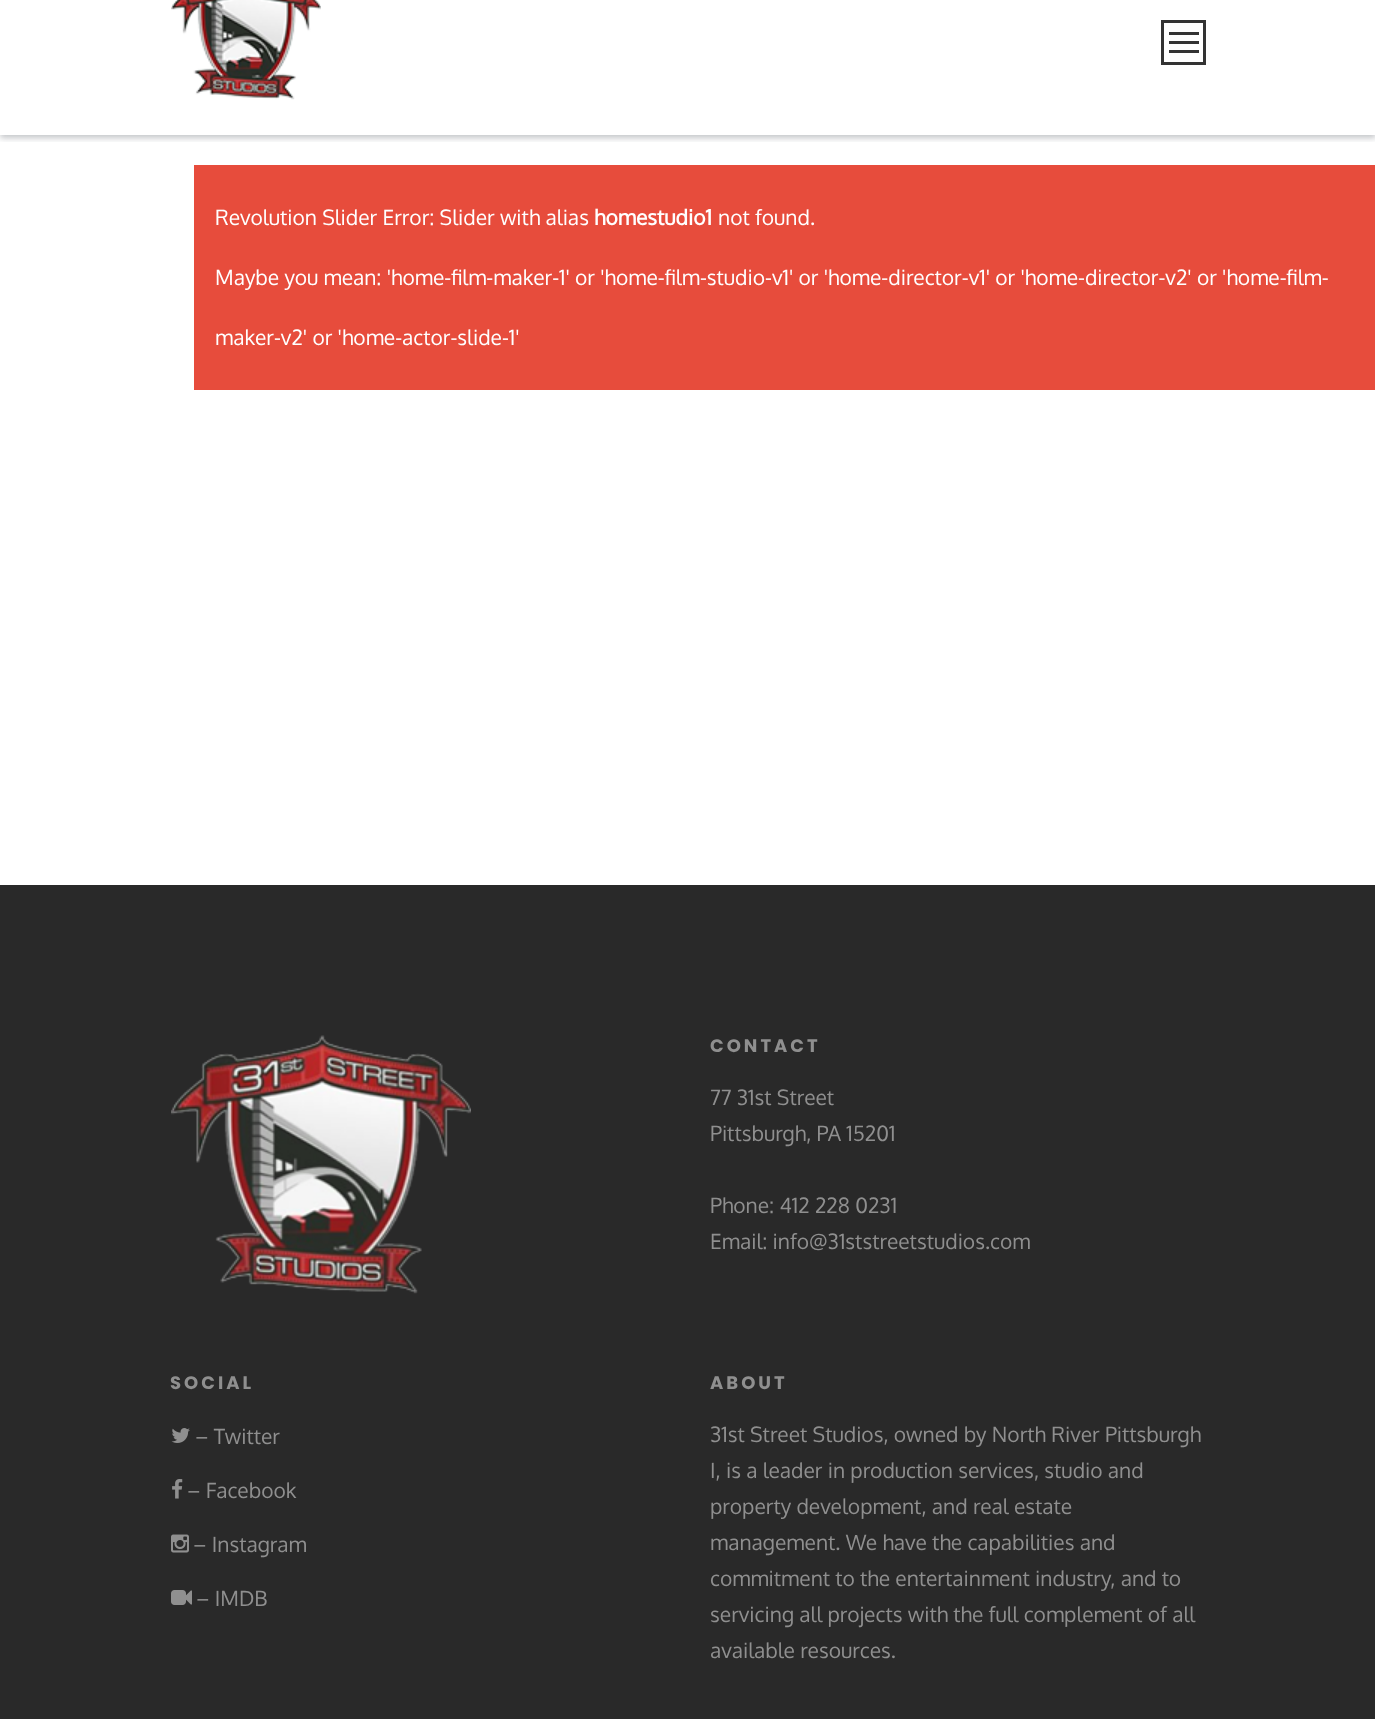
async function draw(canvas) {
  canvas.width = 1375;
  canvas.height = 1719;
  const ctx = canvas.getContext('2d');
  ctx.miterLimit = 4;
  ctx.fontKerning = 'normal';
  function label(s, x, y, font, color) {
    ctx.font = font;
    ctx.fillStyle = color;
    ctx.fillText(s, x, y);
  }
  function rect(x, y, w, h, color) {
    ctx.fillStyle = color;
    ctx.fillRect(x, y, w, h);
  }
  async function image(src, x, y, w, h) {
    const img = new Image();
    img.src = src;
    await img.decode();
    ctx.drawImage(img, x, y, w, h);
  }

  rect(0, 0, 1375, 1719, '#fff');
  ctx.save();
  ctx.beginPath();
  ctx.rect(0, 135, 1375, 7);
  ctx.clip();
  ctx.fillStyle = '#393f484d';
  ctx.filter = 'blur(3px)';
  ctx.beginPath();
  ctx.rect(0, -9, 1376, 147);
  ctx.fill();
  ctx.filter = 'none';
  ctx.restore();
  await image('assets/img1.png', 171, 0, 150, 100);
  ctx.strokeStyle = '#333';
  ctx.lineWidth = 3;
  ctx.strokeRect(1162.5, 21.5, 42, 42);
  rect(1169, 41, 30, 3, '#333');
  rect(1169, 32, 30, 3, '#333');
  rect(1169, 50, 30, 3, '#333');
  rect(194, 165, 1181, 225, '#e74c3c');
  label('Revolution Slider Error: Slider with alias', 215, 225, '21px Oxygen', '#fff');
  label('homestudio1', 594, 225, 'bold 21px Oxygen', '#fff');
  label('not found.', 718, 225, '21px Oxygen', '#fff');
  label('Maybe you mean: \'home-film-maker-1\' or \'home-film-studio-v1\' or \'home-director-v1\' or \'home-director-v2\' or \'home-film-', 215, 285, '21px Oxygen', '#fff');
  label('maker-v2\' or \'home-actor-slide-1\'', 215, 345, '21px Oxygen', '#fff');
  rect(0, 885, 1375, 834, '#292929');
  await image('assets/img2.png', 171, 1035, 300, 259);
  ctx.letterSpacing = '3px';
  label('CONTACT', 710, 1052, 'bold 18px Poppins', '#8f8f8f');
  ctx.letterSpacing = '0px';
  label('77 31st Street', 710, 1105, '21px Oxygen', '#8f8f8f');
  label('Pittsburgh, PA 15201', 710, 1141, '21px Oxygen', '#8f8f8f');
  label('Phone: 412 228 0231', 710, 1213, '21px Oxygen', '#8f8f8f');
  label('Email: info@31ststreetstudios.com', 710, 1249, '21px Oxygen', '#8f8f8f');
  ctx.letterSpacing = '3px';
  label('SOCIAL', 170, 1389, 'bold 18px Poppins', '#8f8f8f');
  await image('assets/img3.png', 171, 1428, 19, 15);
  ctx.letterSpacing = '0px';
  label('– Twitter', 195, 1444, '21px Oxygen', '#8f8f8f');
  await image('assets/img4.png', 172, 1479, 11, 20);
  label('– Facebook', 187, 1498, '21px Oxygen', '#8f8f8f');
  await image('assets/img5.png', 171, 1534, 18, 19);
  label('– Instagram', 193, 1552, '21px Oxygen', '#8f8f8f');
  await image('assets/img6.png', 171, 1590, 21, 15);
  label('– IMDB', 196, 1606, '21px Oxygen', '#8f8f8f');
  ctx.letterSpacing = '3px';
  label('ABOUT', 710, 1389, 'bold 18px Poppins', '#8f8f8f');
  ctx.letterSpacing = '0px';
  label('31st Street Studios, owned by North River Pittsburgh', 710, 1442, '21px Oxygen', '#8f8f8f');
  label('I, is a leader in production services, studio and', 710, 1478, '21px Oxygen', '#8f8f8f');
  label('property development, and real estate', 710, 1514, '21px Oxygen', '#8f8f8f');
  label('management. We have the capabilities and', 710, 1550, '21px Oxygen', '#8f8f8f');
  label('commitment to the entertainment industry, and to', 710, 1586, '21px Oxygen', '#8f8f8f');
  label('servicing all projects with the full complement of all', 710, 1622, '21px Oxygen', '#8f8f8f');
  label('available resources.', 710, 1658, '21px Oxygen', '#8f8f8f');
}

draw(document.querySelector('canvas'));
